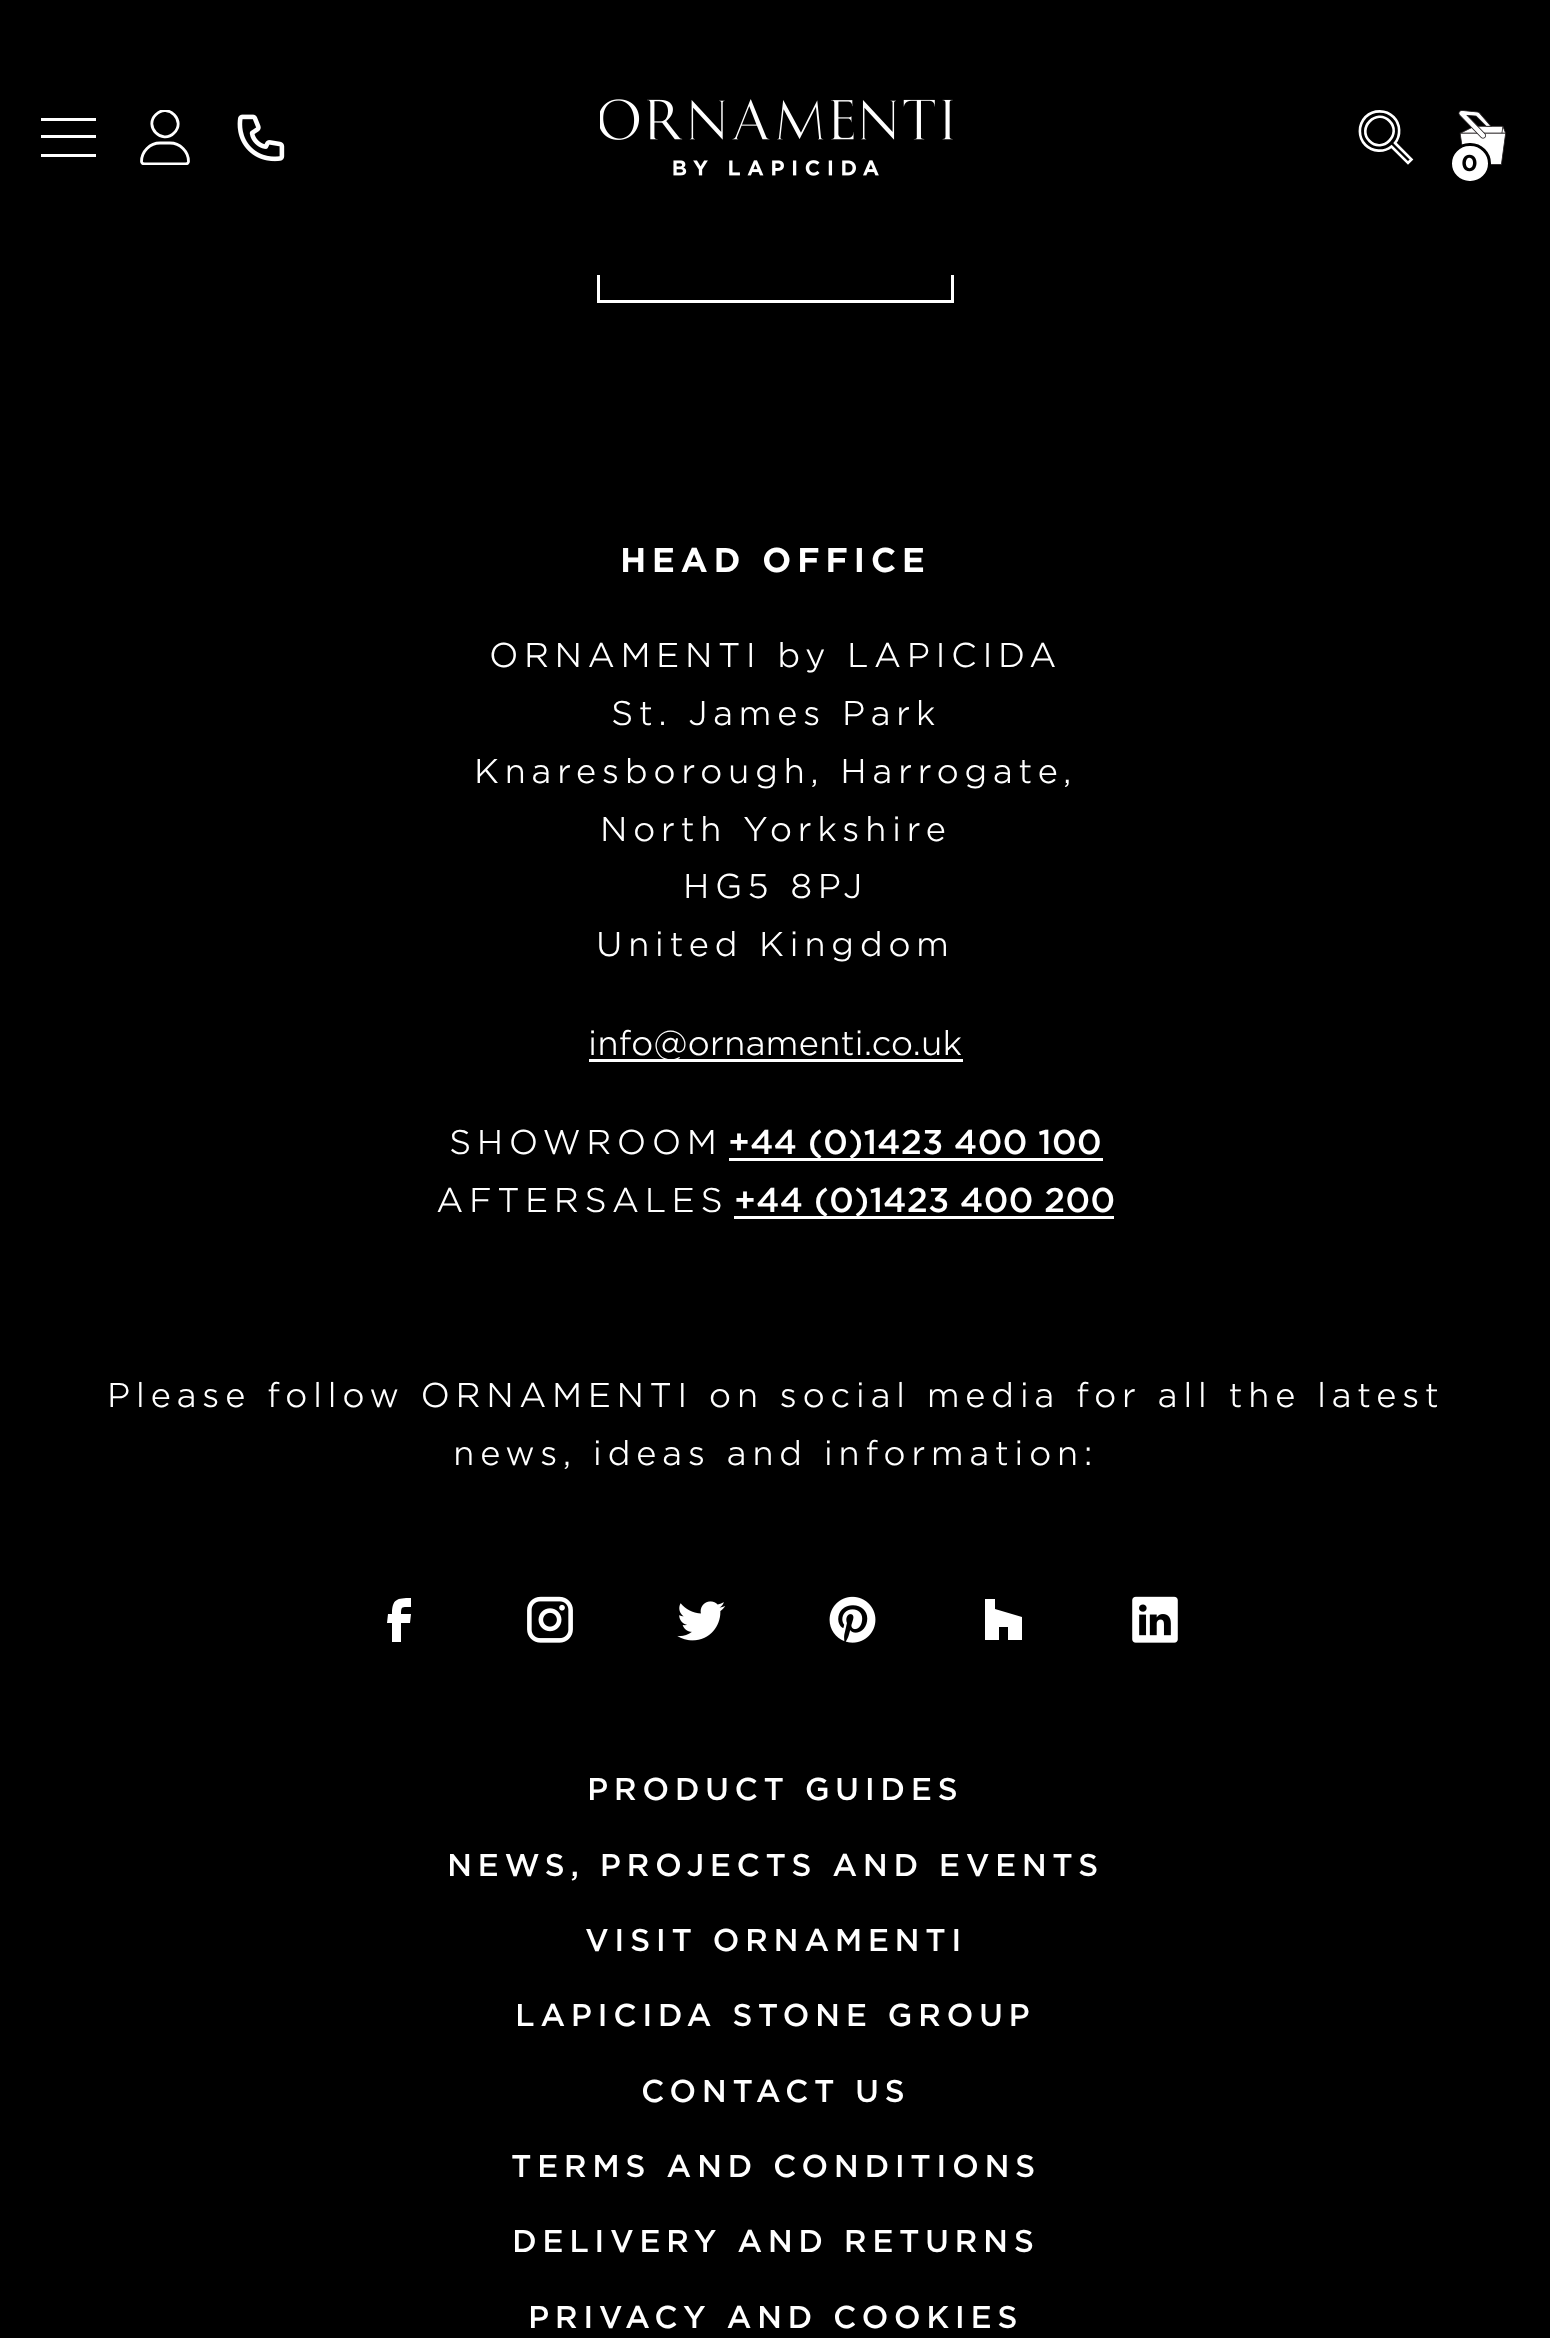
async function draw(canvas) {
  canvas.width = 1550;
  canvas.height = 2338;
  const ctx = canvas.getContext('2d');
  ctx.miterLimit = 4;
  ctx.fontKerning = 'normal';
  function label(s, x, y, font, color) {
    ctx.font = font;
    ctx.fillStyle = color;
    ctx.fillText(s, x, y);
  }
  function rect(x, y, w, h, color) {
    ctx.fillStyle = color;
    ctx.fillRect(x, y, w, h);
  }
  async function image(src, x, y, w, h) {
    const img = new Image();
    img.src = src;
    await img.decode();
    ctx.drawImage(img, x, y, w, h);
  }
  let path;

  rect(0, 0, 1550, 2338, '#000');
  ctx.strokeStyle = '#fff';
  ctx.lineWidth = 3;
  ctx.strokeRect(598.5, 199.5, 354, 102);
  rect(597, 198, 357, 77, '#000');
  await image('assets/img1.png', 600, 99, 353, 77);
  rect(41, 118, 55, 3, '#fff');
  rect(41, 135, 55, 3, '#fff');
  rect(41, 154, 55, 3, '#fff');
  ctx.save();
  ctx.beginPath();
  ctx.rect(138, 110, 55, 55);
  ctx.clip();
  path = new Path2D('M174 133C162 145 143.5 126.5 156 114.5C168 102.5 186.5 121 174 133ZM141.5 161.5C141.5 151.5 150 143 160 143H170C180 143 188.5 151.5 188.5 161.5C188.5 163 187 164 185.5 164H144.5C143 164 141.5 163 141.5 161.5Z');
  ctx.lineWidth = 2.8;
  ctx.stroke(path);
  ctx.restore();
  await image('assets/img2.png', 237, 114, 48, 48);
  path = new Path2D('M1369.5 141C1382.5 154 1402.5 134 1389.5 121C1376.5 108 1356.5 128 1369.5 141ZM1395 143L1411.5 159.5L1408 163L1391.5 146.5C1384 152.5 1372.5 152 1365.5 145C1358 137.5 1358 125 1365.5 117C1373.5 109.5 1386 109.5 1393.5 117C1400.5 124 1401 135.5 1395 143Z');
  ctx.lineWidth = 2.6;
  ctx.stroke(path);
  await image('assets/img3.png', 1458, 110, 48, 55);
  ctx.beginPath();
  ctx.roundRect(1450.5, 144.5, 39, 38, 19);
  ctx.fill();
  ctx.strokeStyle = '#000';
  ctx.lineWidth = 3;
  ctx.stroke();
  label('0', 1461, 171, 'bold 22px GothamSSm', '#000');
  ctx.letterSpacing = '5.5px';
  label('HEAD OFFICE', 620, 572, 'bold 33px GothamSSm', '#fff');
  label('ORNAMENTI by LAPICIDA', 489, 667, '300 33px GothamSSm', '#fff');
  label('St. James Park', 611, 725, '300 33px GothamSSm', '#fff');
  label('Knaresborough, Harrogate,', 474, 783, '300 33px GothamSSm', '#fff');
  label('North Yorkshire', 600, 841, '300 33px GothamSSm', '#fff');
  label('HG5 8PJ', 683, 898, '300 33px GothamSSm', '#fff');
  label('United Kingdom', 596, 956, '300 33px GothamSSm', '#fff');
  rect(589, 1059, 374, 3, '#fff');
  ctx.letterSpacing = '0px';
  label('info@ornamenti.co.uk', 588, 1055, '300 33px GothamSSm', '#fff');
  ctx.letterSpacing = '5.5px';
  label('SHOWROOM', 449, 1154, '300 33px GothamSSm', '#fff');
  rect(729, 1158, 374, 3, '#fff');
  ctx.letterSpacing = '0px';
  label('+44 (0)1423 400 100', 728, 1154, '500 33px GothamSSm', '#fff');
  ctx.letterSpacing = '5.5px';
  label('AFTERSALES', 436, 1212, '300 33px GothamSSm', '#fff');
  rect(734, 1216, 380, 3, '#fff');
  ctx.letterSpacing = '0px';
  label('+44 (0)1423 400 200', 734, 1212, '500 33px GothamSSm', '#fff');
  ctx.letterSpacing = '5.5px';
  label('Please follow ORNAMENTI on social media for all the latest', 107, 1407, '300 33px GothamSSm', '#fff');
  label('news, ideas and information:', 453, 1465, '300 33px GothamSSm', '#fff');
  path = new Path2D('M392 1642H401V1623H410L411 1614H401C401 1606 402 1607 411 1607V1598C397 1598 392 1599 392 1614H388L387 1623H392Z');
  ctx.fill(path);
  await image('assets/img4.png', 527, 1596, 46, 47);
  await image('assets/img5.png', 677, 1601, 49, 40);
  await image('assets/img6.png', 829, 1596, 47, 47);
  path = new Path2D('M1008 1640H1022V1617L995 1609V1599H985V1640H999V1627H1008Z');
  ctx.fill(path);
  await image('assets/img7.png', 1132, 1596, 46, 47);
  label('PRODUCT GUIDES', 587, 1800, '500 30.25px GothamSSm', '#fff');
  label('NEWS, PROJECTS AND EVENTS', 447, 1876, '500 30.25px GothamSSm', '#fff');
  label('VISIT ORNAMENTI', 585, 1951, '500 30.25px GothamSSm', '#fff');
  label('LAPICIDA STONE GROUP', 515, 2026, '500 30.25px GothamSSm', '#fff');
  label('CONTACT US', 641, 2102, '500 30.25px GothamSSm', '#fff');
  label('TERMS AND CONDITIONS', 511, 2177, '500 30.25px GothamSSm', '#fff');
  label('DELIVERY AND RETURNS', 512, 2252, '500 30.25px GothamSSm', '#fff');
  label('PRIVACY AND COOKIES', 528, 2328, '500 30.25px GothamSSm', '#fff');
}

draw(document.querySelector('canvas'));
